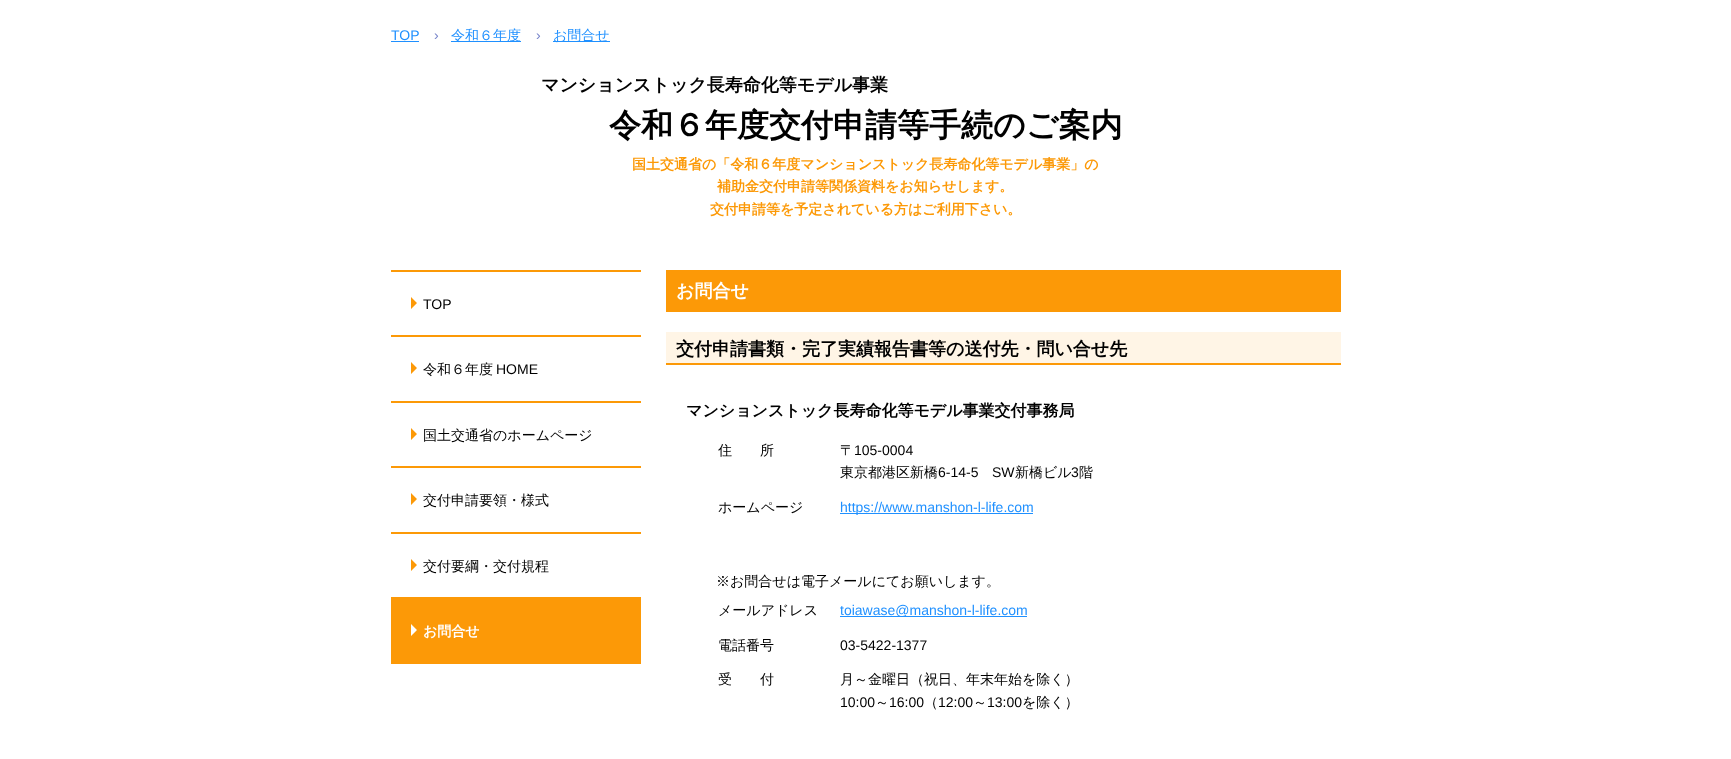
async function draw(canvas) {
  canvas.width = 1731;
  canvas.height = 759;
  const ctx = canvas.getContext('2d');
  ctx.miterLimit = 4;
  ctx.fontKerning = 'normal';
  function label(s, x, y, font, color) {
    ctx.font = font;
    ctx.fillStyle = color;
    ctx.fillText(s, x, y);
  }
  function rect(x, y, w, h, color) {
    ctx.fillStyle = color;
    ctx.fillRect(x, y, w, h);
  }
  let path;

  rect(0, 0, 1731, 759, '#fff');
  label('TOP', 391, 40, '14px Liberation Sans', '#1f90ff');
  rect(391, 41, 28, 1, '#1f90ff');
  label('›', 434, 40, '14px Liberation Sans', '#7986cb');
  rect(451, 41, 70, 1, '#1f90ff');
  label('令和６年度', 451, 40, '500 14px WenQuanYi Zen Hei', '#1f90ff');
  label('›', 536, 40, '14px Liberation Sans', '#7986cb');
  rect(553, 41, 57, 1, '#1f90ff');
  label('お問合せ', 553, 40, '500 14px WenQuanYi Zen Hei', '#1f90ff');
  label('マンションストック長寿命化等モデル事業', 541, 91, 'bold 18px WenQuanYi Zen Hei', '#000');
  label('令和６年度交付申請等手続のご案内', 609, 136, 'bold 32px WenQuanYi Zen Hei', '#000');
  label('国土交通省の「令和６年度マンションストック長寿命化等モデル事業」の', 632, 169, 'bold 14px WenQuanYi Zen Hei', '#fc9907');
  label('補助金交付申請等関係資料をお知らせします。', 717, 191, 'bold 14px WenQuanYi Zen Hei', '#fc9907');
  label('交付申請等を予定されている方はご利用下さい。', 710, 214, 'bold 14px WenQuanYi Zen Hei', '#fc9907');
  rect(391, 270, 250, 2, '#fc9907');
  rect(411, 297, 6, 12, '#fc9907');
  ctx.fillStyle = '#fff';
  path = new Path2D('M411 297H423L417 303ZM423 309H411L417 303Z');
  ctx.fill(path);
  label('TOP', 423, 309, '14px Liberation Sans', '#000');
  rect(391, 335, 250, 2, '#fc9907');
  rect(411, 362, 6, 12, '#fc9907');
  ctx.fillStyle = '#fff';
  path = new Path2D('M411 362H423L417 368ZM423 374H411L417 368Z');
  ctx.fill(path);
  label('令和６年度', 423, 374, '500 14px WenQuanYi Zen Hei', '#000');
  label('HOME', 496, 374, '14px Liberation Sans', '#000');
  rect(391, 401, 250, 2, '#fc9907');
  rect(411, 428, 6, 12, '#fc9907');
  ctx.fillStyle = '#fff';
  path = new Path2D('M411 428H423L417 434ZM423 440H411L417 434Z');
  ctx.fill(path);
  label('国土交通省のホームページ', 423, 440, '500 14px WenQuanYi Zen Hei', '#000');
  rect(391, 466, 250, 2, '#fc9907');
  rect(411, 493, 6, 12, '#fc9907');
  ctx.fillStyle = '#fff';
  path = new Path2D('M411 493H423L417 499ZM423 505H411L417 499Z');
  ctx.fill(path);
  label('交付申請要領・様式', 423, 505, '500 14px WenQuanYi Zen Hei', '#000');
  rect(391, 532, 250, 2, '#fc9907');
  rect(411, 559, 6, 12, '#fc9907');
  ctx.fillStyle = '#fff';
  path = new Path2D('M411 559H423L417 565ZM423 571H411L417 565Z');
  ctx.fill(path);
  label('交付要綱・交付規程', 423, 571, '500 14px WenQuanYi Zen Hei', '#000');
  rect(391, 597, 250, 67, '#fc9907');
  rect(411, 624, 6, 12, '#fff');
  ctx.fillStyle = '#fc9907';
  path = new Path2D('M411 624H423L417 630ZM423 636H411L417 630Z');
  ctx.fill(path);
  label('お問合せ', 423, 636, 'bold 14px WenQuanYi Zen Hei', '#fff');
  rect(666, 270, 675, 42, '#fc9907');
  label('お問合せ', 676, 297, 'bold 18px WenQuanYi Zen Hei', '#fff');
  rect(666, 332, 675, 31, '#fff5e6');
  rect(666, 363, 675, 2, '#fc9907');
  label('交付申請書類・完了実績報告書等の送付先・問い合せ先', 676, 355, 'bold 18px WenQuanYi Zen Hei', '#000');
  label('マンションストック長寿命化等モデル事業交付事務局', 686, 416, 'bold 16px WenQuanYi Zen Hei', '#000');
  label('住　　所', 718, 455, '500 14px WenQuanYi Zen Hei', '#000');
  label('〒', 840, 455, '500 14px WenQuanYi Zen Hei', '#000');
  label('105-0004', 854, 455, '14px Liberation Sans', '#000');
  label('東京都港区新橋', 840, 477, '500 14px WenQuanYi Zen Hei', '#000');
  label('6-14-5', 938, 477, '14px Liberation Sans', '#000');
  label('SW', 992, 477, '14px Liberation Sans', '#000');
  label('新橋ビル', 1015, 477, '500 14px WenQuanYi Zen Hei', '#000');
  label('3', 1071, 477, '14px Liberation Sans', '#000');
  label('階', 1079, 477, '500 14px WenQuanYi Zen Hei', '#000');
  label('ホームページ', 718, 512, '500 14px WenQuanYi Zen Hei', '#000');
  rect(840, 513, 193, 1, '#1f90ff');
  label('https://www.manshon-l-life.com', 840, 512, '14px Liberation Sans', '#1f90ff');
  label('※お問合せは電子メールにてお願いします。', 716, 586, '500 14px WenQuanYi Zen Hei', '#000');
  label('メールアドレス', 718, 615, '500 14px WenQuanYi Zen Hei', '#000');
  rect(840, 616, 187, 1, '#1f90ff');
  label('toiawase@manshon-l-life.com', 840, 615, '14px Liberation Sans', '#1f90ff');
  label('電話番号', 718, 650, '500 14px WenQuanYi Zen Hei', '#000');
  label('03-5422-1377', 840, 650, '14px Liberation Sans', '#000');
  label('受　　付', 718, 684, '500 14px WenQuanYi Zen Hei', '#000');
  label('月～金曜日（祝日、年末年始を除く）', 840, 684, '500 14px WenQuanYi Zen Hei', '#000');
  label('10:00', 840, 707, '14px Liberation Sans', '#000');
  label('～', 875, 707, '500 14px WenQuanYi Zen Hei', '#000');
  label('16:00', 889, 707, '14px Liberation Sans', '#000');
  label('（', 924, 707, '500 14px WenQuanYi Zen Hei', '#000');
  label('12:00', 938, 707, '14px Liberation Sans', '#000');
  label('～', 973, 707, '500 14px WenQuanYi Zen Hei', '#000');
  label('13:00', 987, 707, '14px Liberation Sans', '#000');
  label('を除く）', 1022, 707, '500 14px WenQuanYi Zen Hei', '#000');
}

draw(document.querySelector('canvas'));
